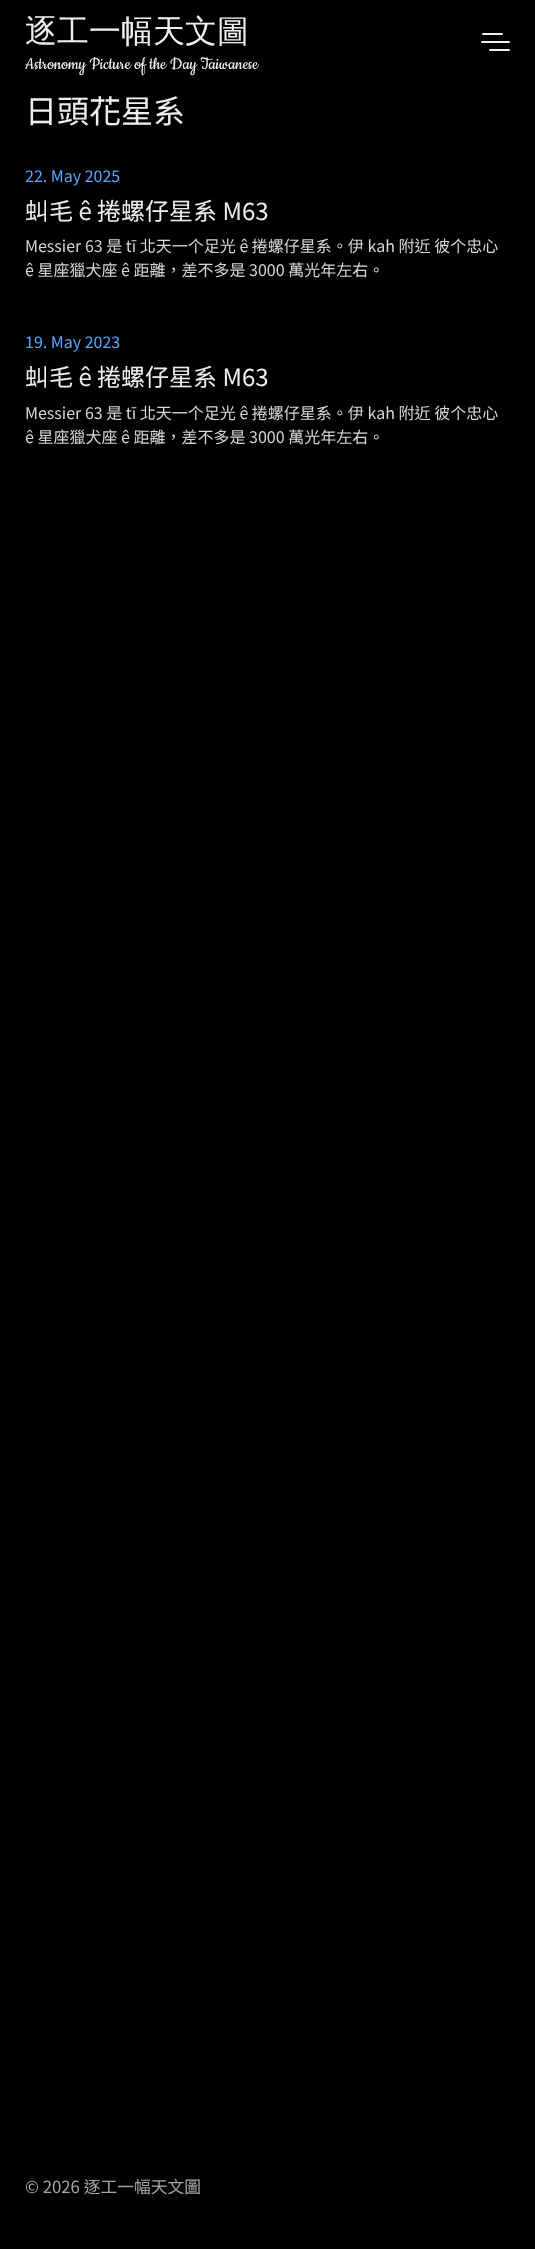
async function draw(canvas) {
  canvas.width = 535;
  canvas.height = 2249;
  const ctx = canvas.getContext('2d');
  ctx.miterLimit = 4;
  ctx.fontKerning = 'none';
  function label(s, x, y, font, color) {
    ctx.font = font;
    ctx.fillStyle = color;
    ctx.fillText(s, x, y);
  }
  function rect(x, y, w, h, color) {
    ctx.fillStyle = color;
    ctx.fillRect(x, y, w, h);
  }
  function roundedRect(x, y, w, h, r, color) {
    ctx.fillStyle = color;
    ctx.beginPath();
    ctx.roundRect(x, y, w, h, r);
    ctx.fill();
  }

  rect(0, 0, 535, 2249, '#000');
  label('逐工一幅天文圖', 25, 42, '500 32px WenQuanYi Zen Hei', '#eee');
  label('Astronomy Picture of the Day Taiwanese', 25, 69, '19.25px Cookie', '#eee');
  roundedRect(481, 41, 29, 2, 1, '#eee');
  roundedRect(482, 33, 21, 2, 1, '#eee');
  roundedRect(489, 49, 21, 2, 1, '#eee');
  label('日頭花星系', 25, 123, '32px Noto Sans TC', '#eee');
  label('22. May 2025', 25, 182, '16px Noto Sans TC', '#58a6ff');
  label('虯毛 ê 捲螺仔星系 M63', 25, 220, '24px Noto Sans TC', '#eee');
  label('Messier 63 是 tī 北天一个足光 ê 捲螺仔星系。伊 kah 附近 彼个忠心', 25, 252, '16px Noto Sans TC', '#d6d6d6');
  label('ê 星座獵犬座 ê 距離，差不多是 3000 萬光年左右。', 25, 276, '16px Noto Sans TC', '#d6d6d6');
  label('19. May 2023', 25, 348, '16px Noto Sans TC', '#58a6ff');
  label('虯毛 ê 捲螺仔星系 M63', 25, 386, '24px Noto Sans TC', '#eee');
  label('Messier 63 是 tī 北天一个足光 ê 捲螺仔星系。伊 kah 附近 彼个忠心', 25, 419, '16px Noto Sans TC', '#d6d6d6');
  label('ê 星座獵犬座 ê 距離，差不多是 3000 萬光年左右。', 25, 443, '16px Noto Sans TC', '#d6d6d6');
  label('© 2026 逐工一幅天文圖', 25, 2193, '16.75px Noto Sans TC', '#a7a7a7');
}

draw(document.querySelector('canvas'));
